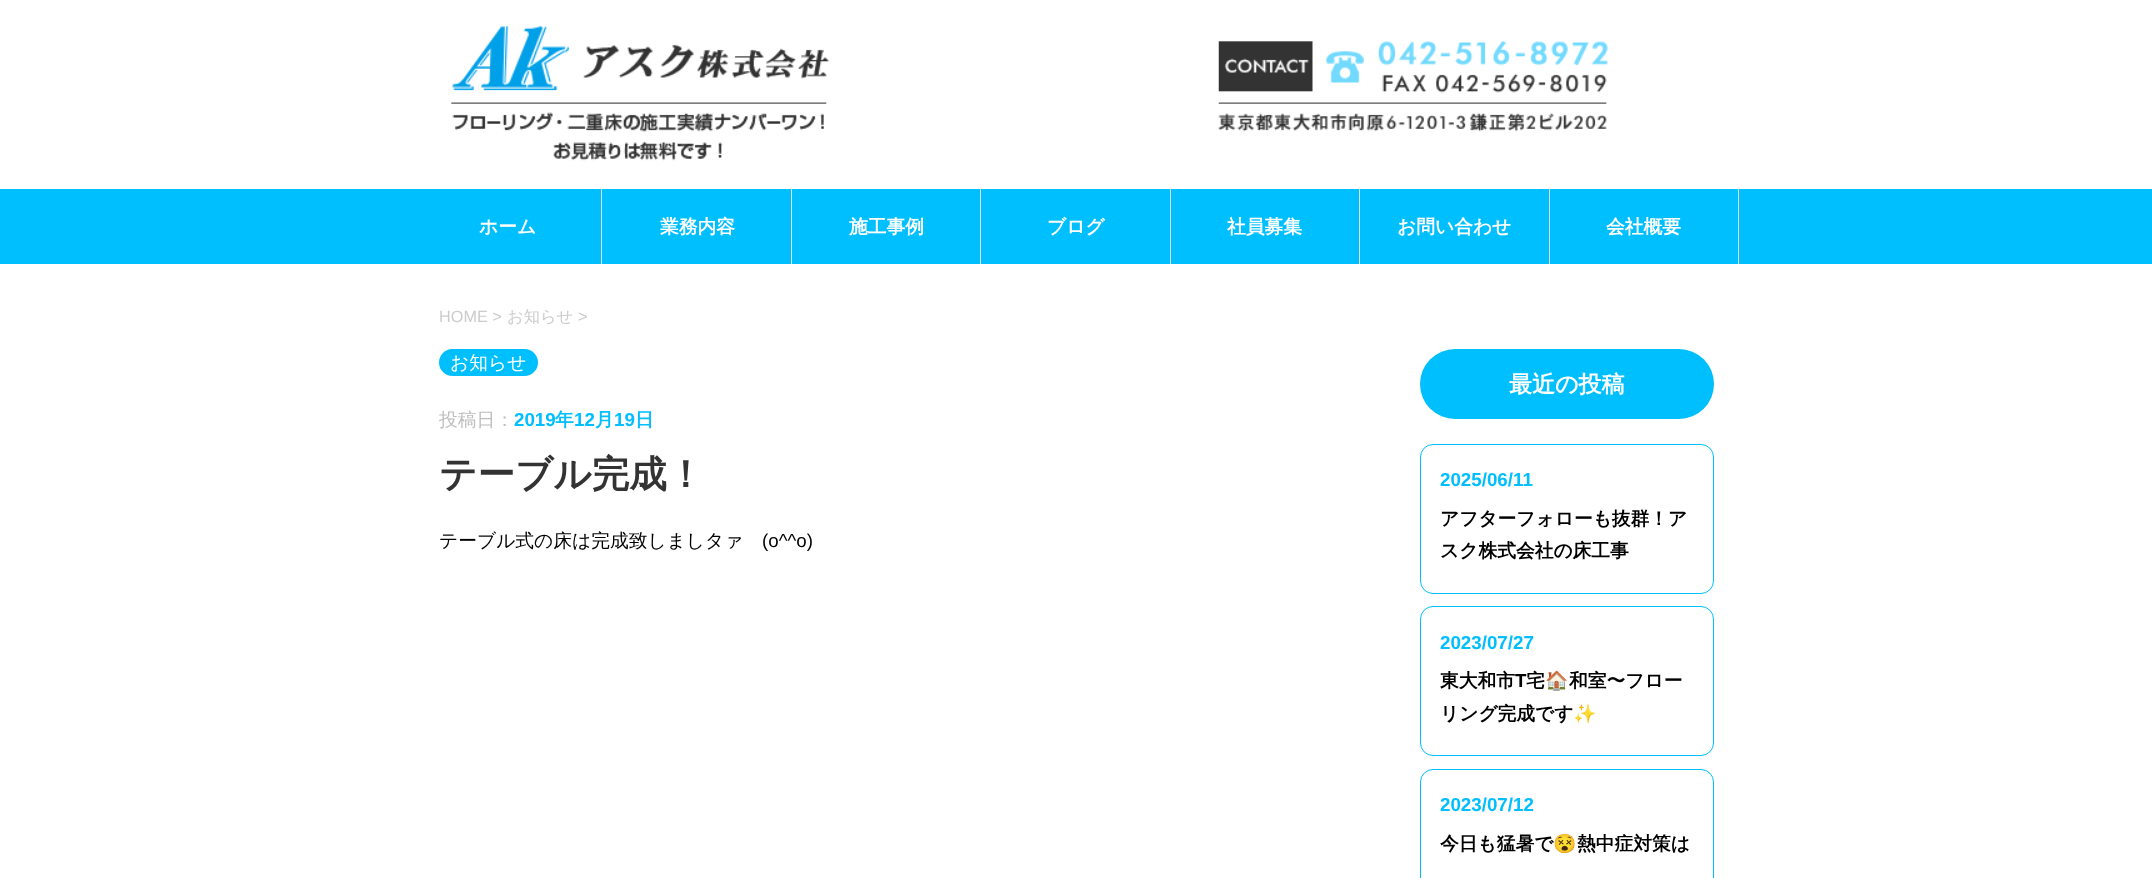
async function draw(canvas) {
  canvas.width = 2152;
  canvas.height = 878;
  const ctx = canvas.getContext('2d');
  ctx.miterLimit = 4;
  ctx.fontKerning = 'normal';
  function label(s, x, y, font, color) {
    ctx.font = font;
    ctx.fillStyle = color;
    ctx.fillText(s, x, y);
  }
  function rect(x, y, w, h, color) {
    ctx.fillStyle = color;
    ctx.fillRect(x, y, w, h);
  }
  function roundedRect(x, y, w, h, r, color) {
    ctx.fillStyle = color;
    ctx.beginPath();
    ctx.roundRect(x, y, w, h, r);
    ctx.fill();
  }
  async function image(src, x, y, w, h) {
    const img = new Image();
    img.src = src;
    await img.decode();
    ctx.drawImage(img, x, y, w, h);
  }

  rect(0, 0, 2152, 878, '#fff');
  await image('assets/img1.png', 451, 26, 378, 135);
  await image('assets/img2.png', 1218, 41, 390, 91);
  rect(0, 189, 2152, 75, '#00bfff');
  rect(601, 189, 1, 75, '#e0dede');
  label('ホーム', 479, 233, 'bold 18.75px WenQuanYi Zen Hei', '#fff');
  rect(791, 189, 1, 75, '#e0dede');
  label('業務内容', 660, 233, 'bold 18.75px WenQuanYi Zen Hei', '#fff');
  rect(980, 189, 1, 75, '#e0dede');
  label('施工事例', 849, 233, 'bold 18.75px WenQuanYi Zen Hei', '#fff');
  rect(1170, 189, 1, 75, '#e0dede');
  label('ブログ', 1047, 233, 'bold 18.75px WenQuanYi Zen Hei', '#fff');
  rect(1359, 189, 1, 75, '#e0dede');
  label('社員募集', 1227, 233, 'bold 18.75px WenQuanYi Zen Hei', '#fff');
  rect(1549, 189, 1, 75, '#e0dede');
  label('お問い合わせ', 1397, 233, 'bold 18.75px WenQuanYi Zen Hei', '#fff');
  rect(1738, 189, 1, 75, '#e0dede');
  label('会社概要', 1606, 233, 'bold 18.75px WenQuanYi Zen Hei', '#fff');
  label('HOME >', 439, 322, '16.25px Liberation Sans', '#ccc');
  label('お知らせ', 507, 322, '500 16.25px WenQuanYi Zen Hei', '#ccc');
  label('>', 578, 322, '16.25px Liberation Sans', '#ccc');
  roundedRect(439, 349, 99, 27, 13.5, '#00bfff');
  label('お知らせ', 450, 369, '500 18.75px WenQuanYi Zen Hei', '#fff');
  label('投稿日：', 439, 426, '500 18.75px WenQuanYi Zen Hei', '#bdbdbd');
  label('2019', 514, 426, 'bold 18.75px Liberation Sans', '#00bfff');
  label('年', 555, 426, 'bold 18.75px WenQuanYi Zen Hei', '#00bfff');
  label('12', 574, 426, 'bold 18.75px Liberation Sans', '#00bfff');
  label('月', 595, 426, 'bold 18.75px WenQuanYi Zen Hei', '#00bfff');
  label('19', 614, 426, 'bold 18.75px Liberation Sans', '#00bfff');
  label('日', 635, 426, 'bold 18.75px WenQuanYi Zen Hei', '#00bfff');
  label('テーブル完成！', 439, 487, 'bold 37.5px WenQuanYi Zen Hei', '#333');
  label('テーブル式の床は完成致しましタァ', 439, 547, '500 18.75px WenQuanYi Zen Hei', '#000');
  label('(o^^o)', 762, 547, '18.75px Liberation Sans', '#000');
  roundedRect(1420, 349, 294, 70, 35, '#00bfff');
  label('最近の投稿', 1509, 392, 'bold 23px WenQuanYi Zen Hei', '#fff');
  ctx.beginPath();
  ctx.roundRect(1420.5, 444.5, 293, 149, 12.5);
  ctx.strokeStyle = '#00bfff';
  ctx.stroke();
  label('2025/06/11', 1440, 486, 'bold 18.75px Liberation Sans', '#00bfff');
  label('アフターフォローも抜群！ア', 1440, 525, 'bold 18.75px WenQuanYi Zen Hei', '#000');
  label('スク株式会社の床工事', 1440, 557, 'bold 18.75px WenQuanYi Zen Hei', '#000');
  ctx.beginPath();
  ctx.roundRect(1420.5, 606.5, 293, 149, 12.5);
  ctx.stroke();
  label('2023/07/27', 1440, 649, 'bold 18.75px Liberation Sans', '#00bfff');
  label('東大和市', 1440, 687, 'bold 18.75px WenQuanYi Zen Hei', '#000');
  label('T', 1515, 687, 'bold 18.75px Liberation Sans', '#000');
  label('宅', 1526, 687, 'bold 18.75px WenQuanYi Zen Hei', '#000');
  label('🏠', 1545, 687, 'bold 18.75px Noto Color Emoji', '#000');
  label('和室〜フロー', 1569, 687, 'bold 18.75px WenQuanYi Zen Hei', '#000');
  label('リング完成です', 1440, 720, 'bold 18.75px WenQuanYi Zen Hei', '#000');
  label('✨', 1573, 720, 'bold 18.75px Noto Color Emoji', '#000');
  ctx.beginPath();
  ctx.roundRect(1420.5, 769.5, 293, 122, 12.5);
  ctx.stroke();
  label('2023/07/12', 1440, 811, 'bold 18.75px Liberation Sans', '#00bfff');
  label('今日も猛暑で', 1440, 850, 'bold 18.75px WenQuanYi Zen Hei', '#000');
  label('😵', 1553, 850, 'bold 18.75px Noto Color Emoji', '#000');
  label('熱中症対策は', 1577, 850, 'bold 18.75px WenQuanYi Zen Hei', '#000');
}

draw(document.querySelector('canvas'));
